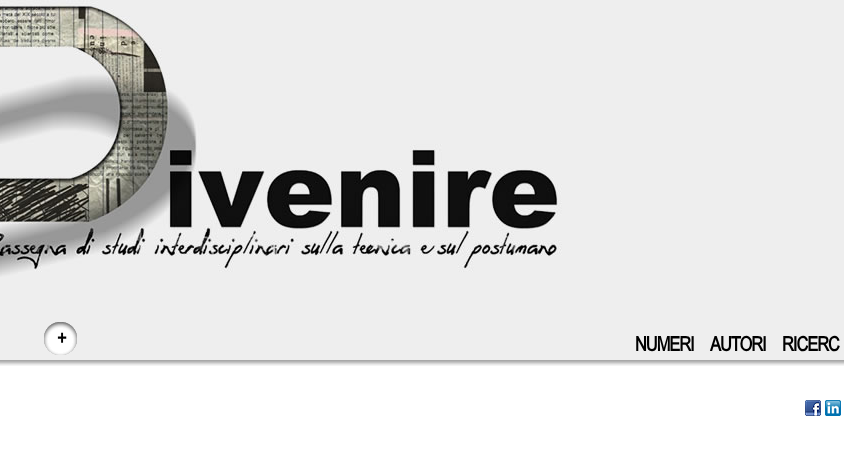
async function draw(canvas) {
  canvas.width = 844;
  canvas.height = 457;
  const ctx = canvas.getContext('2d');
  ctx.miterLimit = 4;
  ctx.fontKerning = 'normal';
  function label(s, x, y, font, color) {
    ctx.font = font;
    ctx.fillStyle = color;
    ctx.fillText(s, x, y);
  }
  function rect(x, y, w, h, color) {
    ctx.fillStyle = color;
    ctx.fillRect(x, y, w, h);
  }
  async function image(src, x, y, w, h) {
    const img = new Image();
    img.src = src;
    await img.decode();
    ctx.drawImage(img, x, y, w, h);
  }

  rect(0, 0, 844, 457, '#fff');
  rect(0, 0, 844, 360, '#eee');
  await image('assets/img1.png', 0, 0, 562, 277);
  await image('assets/img2.png', 44, 322, 33, 33);
  ctx.letterSpacing = '-1px';
  label('+', 57, 345, 'bold 20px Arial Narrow', '#000');
  label('NUMERI', 635, 351, 'bold 20px Arial Narrow', '#000');
  label('AUTORI', 710, 351, 'bold 20px Arial Narrow', '#000');
  label('RICERC', 782, 351, 'bold 20px Arial Narrow', '#000');
  await image('assets/img3.png', 0, 360, 844, 6);
  await image('assets/img4.png', 805, 400, 16, 16);
  await image('assets/img5.png', 825, 400, 16, 16);
}

draw(document.querySelector('canvas'));
